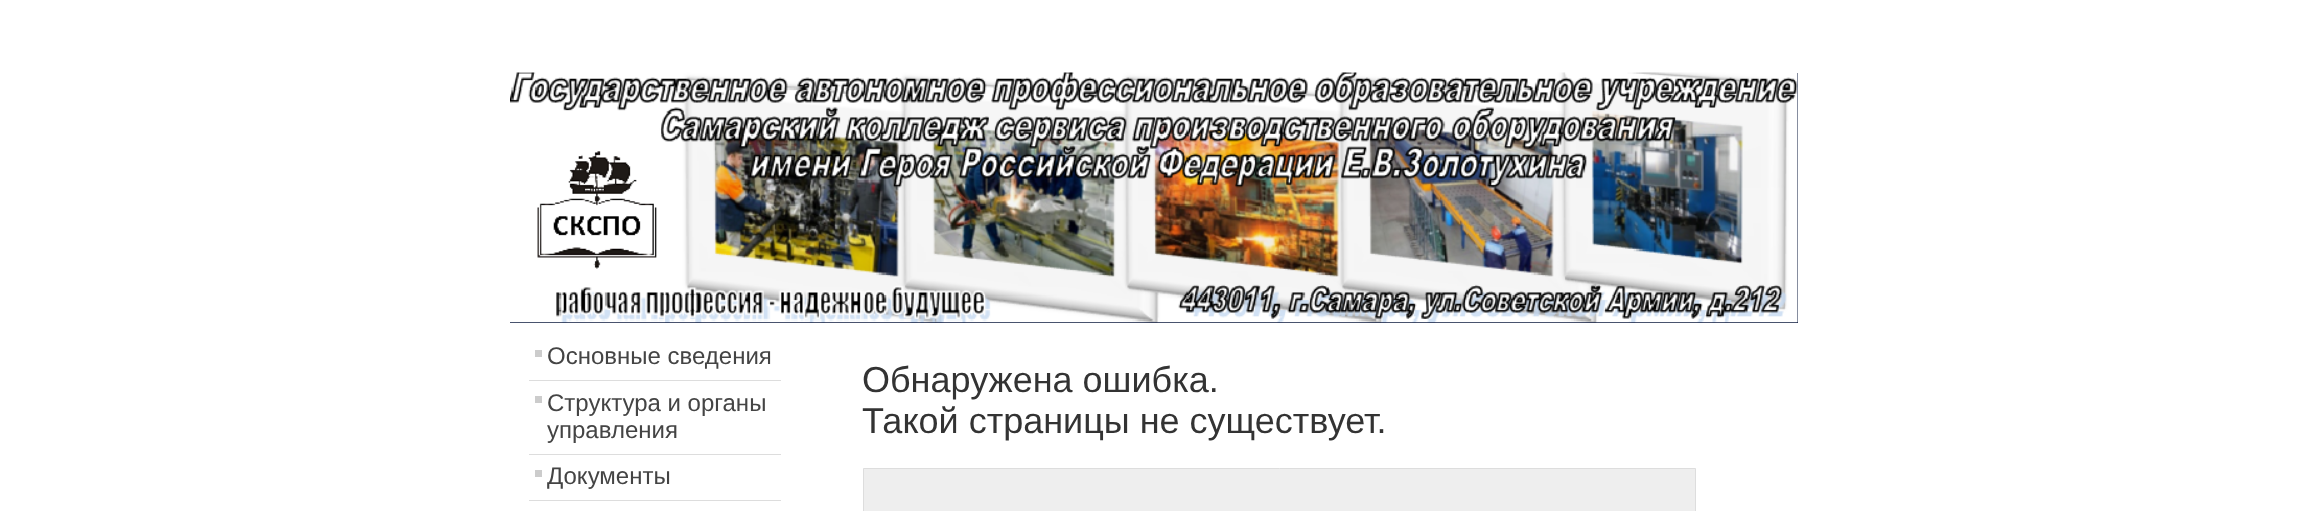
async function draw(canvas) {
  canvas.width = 2306;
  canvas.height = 511;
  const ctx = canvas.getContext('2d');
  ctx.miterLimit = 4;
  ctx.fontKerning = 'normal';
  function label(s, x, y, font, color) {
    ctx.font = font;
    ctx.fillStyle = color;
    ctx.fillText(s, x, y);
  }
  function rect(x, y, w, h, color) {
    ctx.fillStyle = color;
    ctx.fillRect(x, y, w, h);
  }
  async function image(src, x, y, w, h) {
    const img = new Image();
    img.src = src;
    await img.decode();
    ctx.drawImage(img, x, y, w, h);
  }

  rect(0, 0, 2306, 511, '#fff');
  rect(510, 73, 1288, 250, '#0c1a3e');
  await image('assets/img1.png', 510, 72, 1288, 251);
  await image('assets/img2.png', 537, 151, 120, 118);
  rect(529, 380, 252, 1, '#ddd');
  rect(535, 350, 7, 7, '#ccc');
  label('Основные сведения', 547, 364, '24px Liberation Sans', '#444');
  rect(529, 454, 252, 1, '#ddd');
  rect(535, 396, 7, 7, '#ccc');
  label('Структура и органы', 547, 411, '24px Liberation Sans', '#444');
  label('управления', 547, 438, '24px Liberation Sans', '#444');
  rect(529, 500, 252, 1, '#ddd');
  rect(535, 470, 7, 7, '#ccc');
  label('Документы', 547, 484, '24px Liberation Sans', '#444');
  label('Обнаружена ошибка.', 862, 392, '36px Liberation Sans', '#333');
  label('Такой страницы не существует.', 862, 433, '36px Liberation Sans', '#333');
  ctx.fillStyle = '#eee';
  ctx.beginPath();
  ctx.rect(863.5, 468.5, 832, 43);
  ctx.fill();
  ctx.strokeStyle = '#ddd';
  ctx.stroke();
}

draw(document.querySelector('canvas'));
